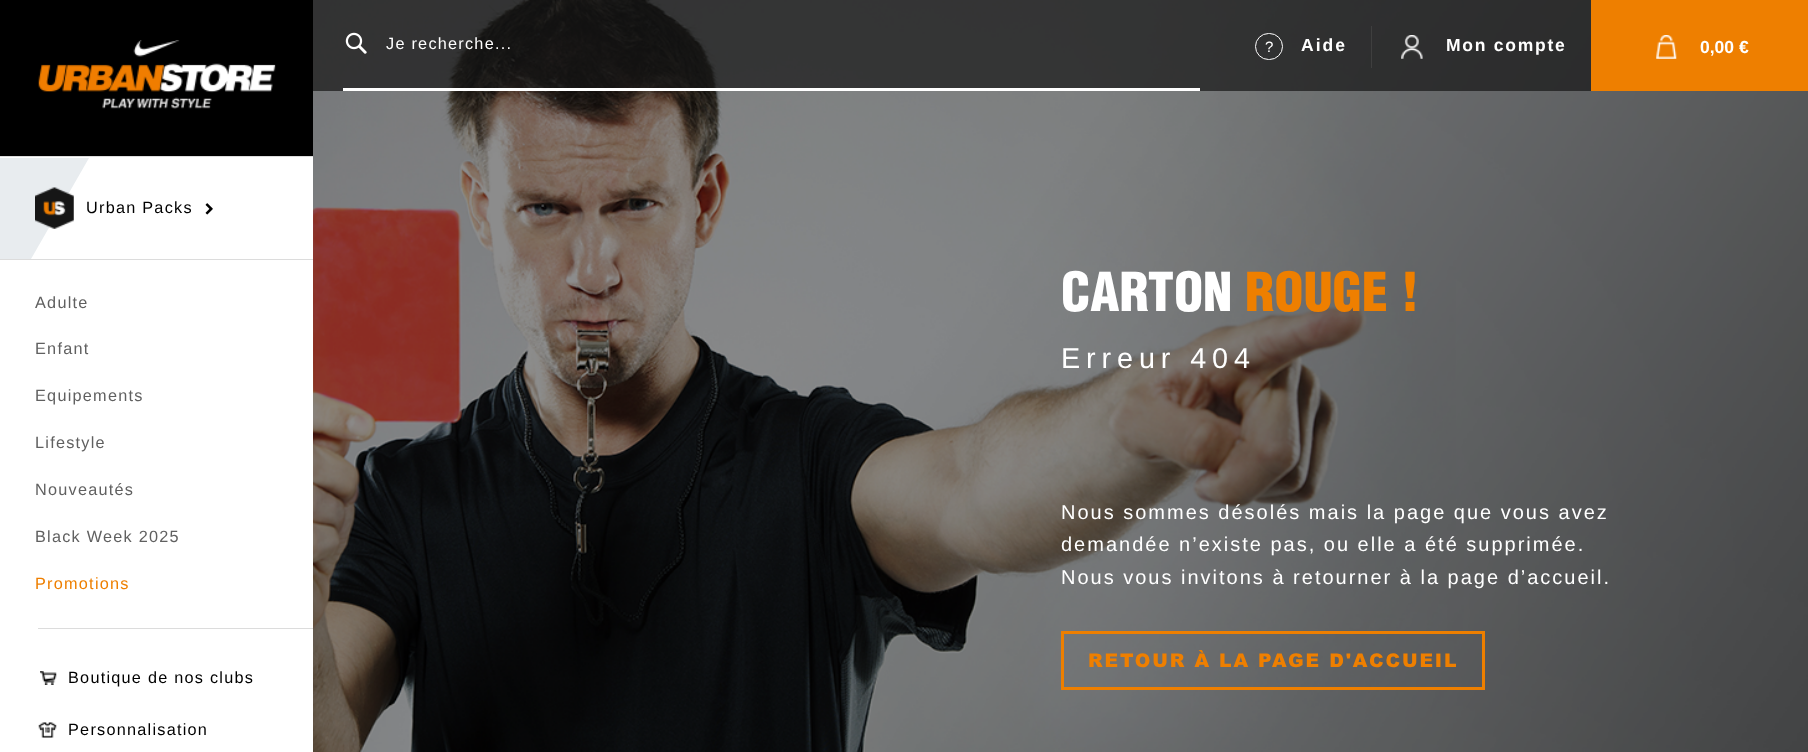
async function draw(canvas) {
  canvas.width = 1808;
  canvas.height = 752;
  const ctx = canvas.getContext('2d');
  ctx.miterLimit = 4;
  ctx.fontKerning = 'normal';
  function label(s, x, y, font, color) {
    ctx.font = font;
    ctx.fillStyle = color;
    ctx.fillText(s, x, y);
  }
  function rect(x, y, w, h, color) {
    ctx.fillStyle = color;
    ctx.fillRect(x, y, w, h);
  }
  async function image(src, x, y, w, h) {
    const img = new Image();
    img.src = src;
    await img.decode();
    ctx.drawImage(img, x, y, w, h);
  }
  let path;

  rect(0, 0, 1808, 752, '#fff');
  await image('assets/img9.png', 313, 0, 1495, 752);
  rect(313, 0, 1278, 91, '#161616b3');
  await image('assets/img1.png', 345, 32, 22, 22);
  rect(343, 88, 857, 3, '#fff');
  ctx.letterSpacing = '1.25px';
  label('Je recherche...', 386, 49, '16.25px Liberation Sans', '#fff');
  ctx.beginPath();
  ctx.roundRect(1255.5, 33.5, 27, 26, 13);
  ctx.strokeStyle = '#fff';
  ctx.stroke();
  ctx.letterSpacing = '2px';
  label('?', 1265, 52, '15px Liberation Sans', '#fff');
  label('Aide', 1301, 51, 'bold 17.5px Liberation Sans', '#fff');
  rect(1371, 26, 1, 42, '#3f3f3f');
  await image('assets/img2.png', 1401, 35, 22, 24);
  ctx.letterSpacing = '1.75px';
  label('Mon compte', 1446, 51, 'bold 17.5px Liberation Sans', '#fff');
  rect(1591, 0, 217, 91, '#ee7f00');
  await image('assets/img3.png', 1656, 35, 21, 24);
  ctx.letterSpacing = '0px';
  label('0,00 €', 1700, 53, 'bold 17.5px Liberation Sans', '#fff');
  rect(0, 0, 313, 156, '#000');
  await image('assets/img4.png', 38, 40, 238, 69);
  rect(0, 156, 313, 1, '#dcdcdc');
  rect(0, 259, 313, 1, '#dcdcdc');
  ctx.fillStyle = '#e8ecef';
  path = new Path2D('M-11 158H89L31 259H-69Z');
  ctx.fill(path);
  await image('assets/img5.png', 35, 187, 39, 42);
  ctx.letterSpacing = '1.25px';
  label('Urban Packs', 86, 213, '16.25px Liberation Sans', '#000');
  await image('assets/img6.png', 205, 203, 8, 12);
  label('Adulte', 35, 308, '16.25px Liberation Sans', '#606060');
  label('Enfant', 35, 354, '16.25px Liberation Sans', '#606060');
  label('Equipements', 35, 401, '16.25px Liberation Sans', '#606060');
  label('Lifestyle', 35, 448, '16.25px Liberation Sans', '#606060');
  label('Nouveautés', 35, 495, '16.25px Liberation Sans', '#606060');
  label('Black Week 2025', 35, 542, '16.25px Liberation Sans', '#606060');
  label('Promotions', 35, 589, '16.25px Liberation Sans', '#ee7f00');
  rect(38, 628, 275, 1, '#dcdcdc');
  await image('assets/img7.png', 40, 671, 17, 14);
  label('Boutique de nos clubs', 68, 683, '16.25px Liberation Sans', '#000');
  await image('assets/img8.png', 38, 722, 19, 16);
  label('Personnalisation', 68, 735, '16.25px Liberation Sans', '#000');
  ctx.letterSpacing = '0px';
  label('CARTON', 1061, 311, '900 52.5px Helvetica', '#fff');
  label('ROUGE !', 1245, 311, '900 52.5px Helvetica', '#ee7f00');
  ctx.letterSpacing = '5.9px';
  label('Erreur 404', 1061, 368, '28.75px Liberation Sans', '#fff');
  ctx.letterSpacing = '2px';
  label('Nous sommes désolés mais la page que vous avez', 1061, 519, '20px Liberation Sans', '#fff');
  label('demandée n’existe pas, ou elle a été supprimée.', 1061, 551, '20px Liberation Sans', '#fff');
  label('Nous vous invitons à retourner à la page d’accueil.', 1061, 584, '20px Liberation Sans', '#fff');
  ctx.strokeStyle = '#ee7f00';
  ctx.lineWidth = 3;
  ctx.strokeRect(1062.5, 632.5, 421, 56);
  ctx.letterSpacing = '1.9px';
  label('RETOUR À LA PAGE D\'ACCUEIL', 1088, 667, '900 18.75px Arial', '#ee7f00');
}

draw(document.querySelector('canvas'));
